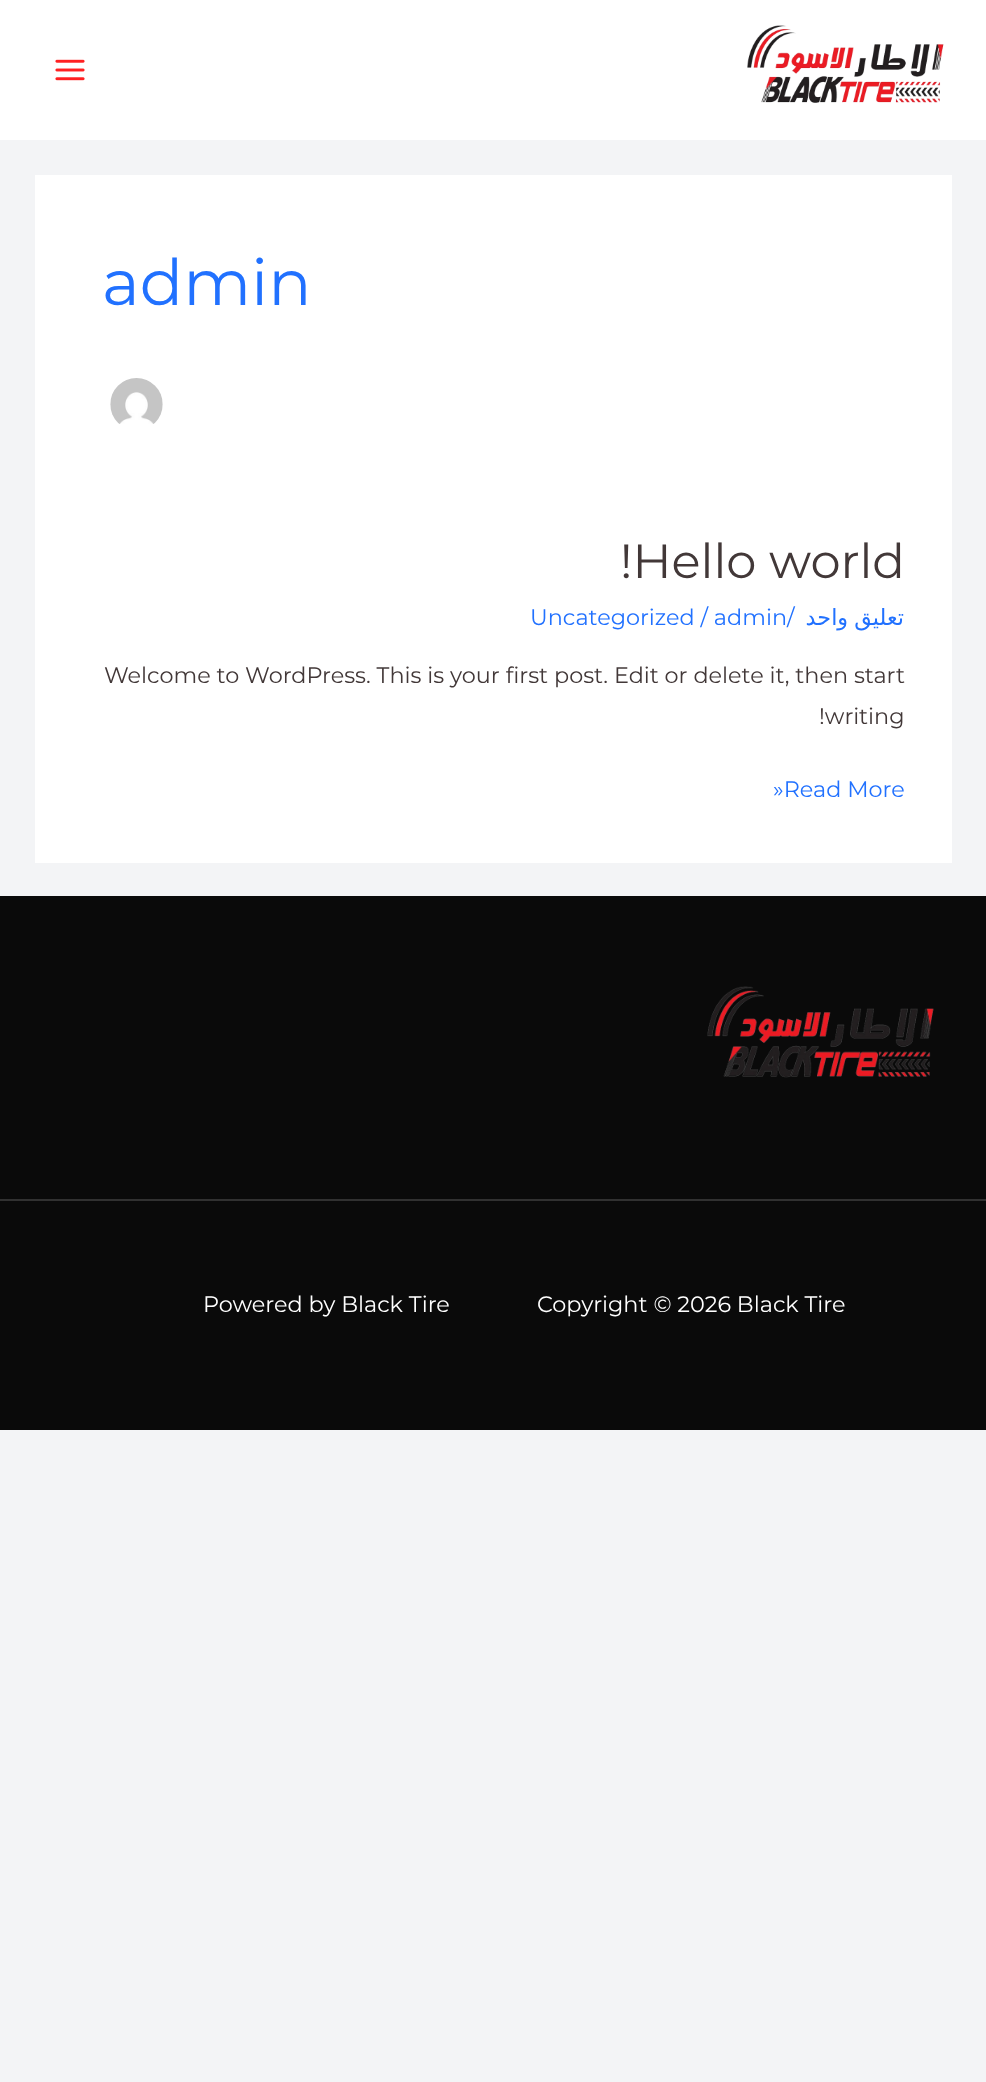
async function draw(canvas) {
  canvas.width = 986;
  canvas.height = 2082;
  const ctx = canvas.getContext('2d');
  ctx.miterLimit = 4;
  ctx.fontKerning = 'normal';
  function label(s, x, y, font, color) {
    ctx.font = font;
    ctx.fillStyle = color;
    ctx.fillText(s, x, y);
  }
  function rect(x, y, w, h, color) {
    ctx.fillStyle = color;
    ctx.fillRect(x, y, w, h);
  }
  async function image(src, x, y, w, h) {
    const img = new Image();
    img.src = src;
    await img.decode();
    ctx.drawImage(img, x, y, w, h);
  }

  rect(0, 0, 986, 2082, '#f3f4f6');
  rect(0, 0, 986, 140, '#fff');
  await image('assets/img1.png', 55, 59, 30, 22);
  await image('assets/img2.png', 747, 25, 197, 78);
  rect(35, 175, 917, 688, '#fff');
  label('admin', 102, 305, '64px Montserrat', '#2171ff');
  await image('assets/img3.png', 110, 378, 53, 46);
  label('!Hello world', 620, 578, '48px Montserrat', '#423838');
  label('Uncategorized / admin', 530, 625, '22.35px Montserrat', '#2171ff');
  label('/', 787, 625, '22.35px Montserrat', '#2171ff');
  ctx.wordSpacing = '-1px';
  ctx.direction = 'rtl';
  label('تعليق واحد', 904, 625, '22.35px DejaVu Sans', '#2171ff');
  ctx.wordSpacing = '0px';
  ctx.direction = 'ltr';
  label('Welcome to WordPress. This is your first post. Edit or delete it, then start', 104, 683, '22.35px Montserrat', '#423838');
  label('!writing', 819, 724, '22.35px Montserrat', '#423838');
  label('»Read More', 773, 797, '22.35px Montserrat', '#2171ff');
  rect(0, 896, 986, 534, '#0a0a0a');
  await image('assets/img4.png', 707, 986, 227, 92);
  rect(0, 1199, 986, 2, '#313131');
  label('Powered by Black Tire', 203, 1312, '22.35px Montserrat', '#fff');
  label('Copyright © 2026 Black Tire', 537, 1312, '22.35px Montserrat', '#fff');
}

draw(document.querySelector('canvas'));
